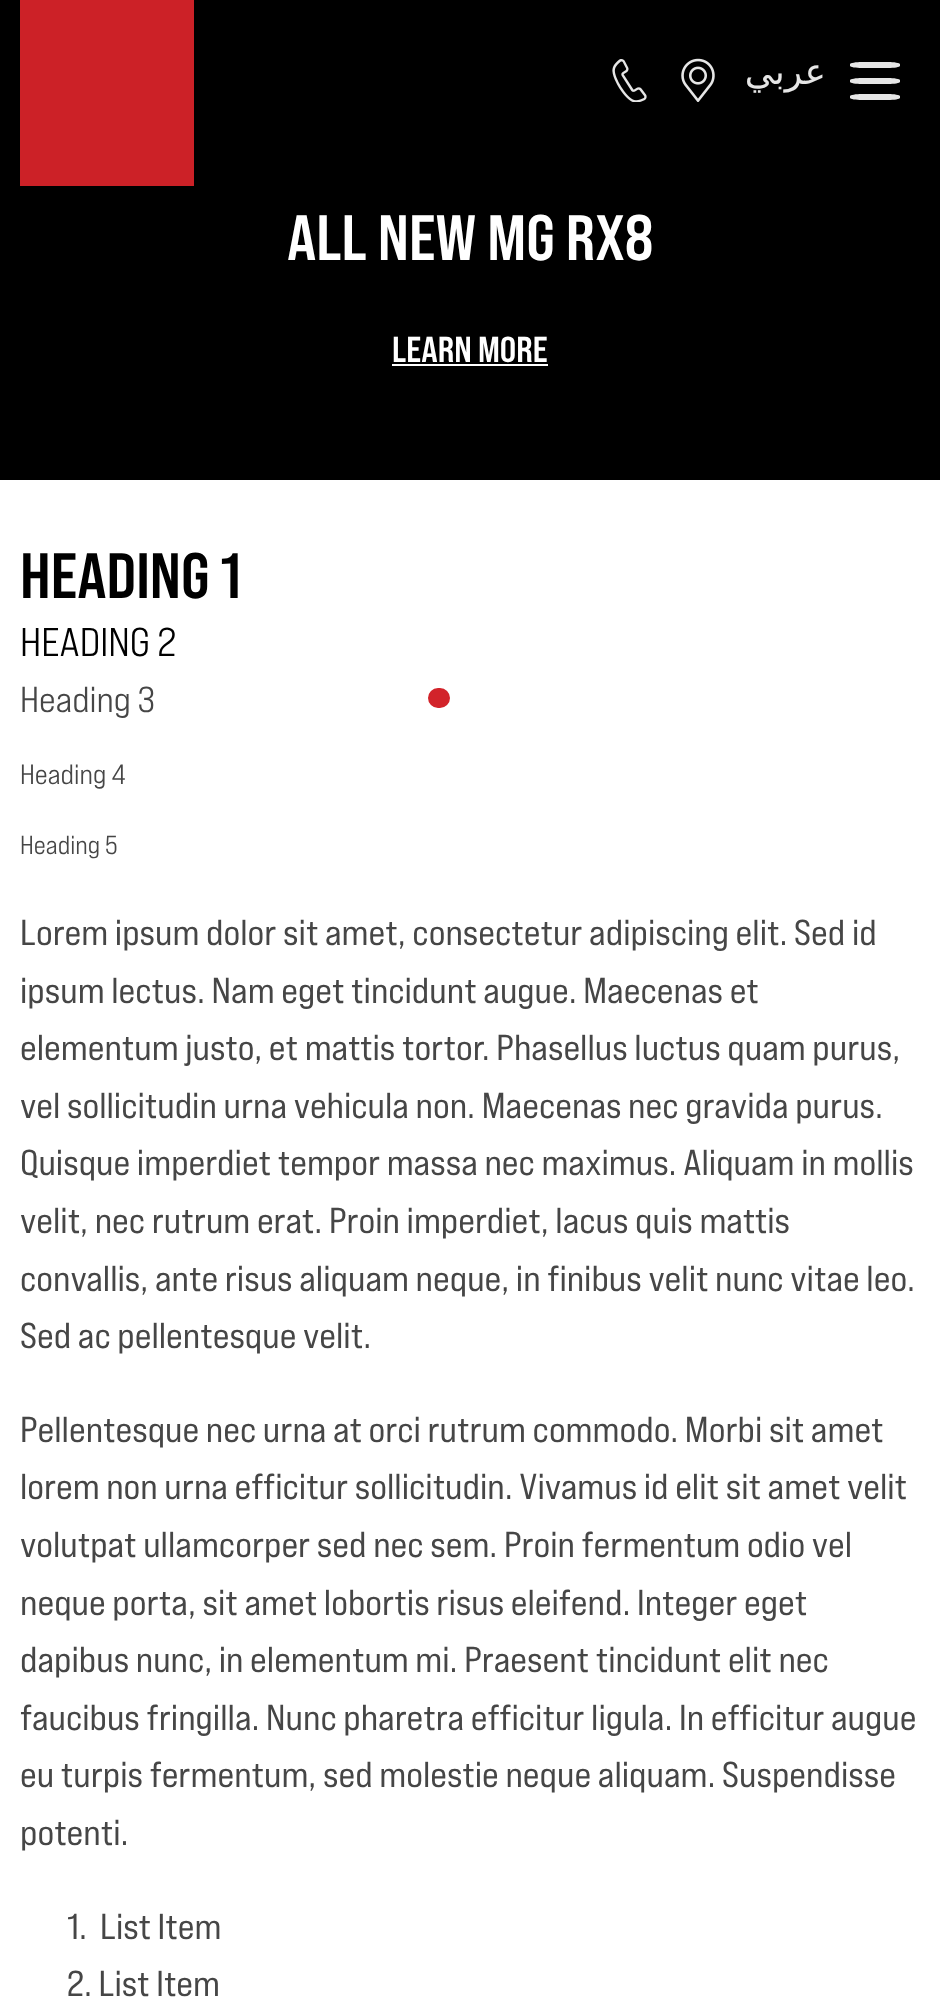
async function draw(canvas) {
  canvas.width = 940;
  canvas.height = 2001;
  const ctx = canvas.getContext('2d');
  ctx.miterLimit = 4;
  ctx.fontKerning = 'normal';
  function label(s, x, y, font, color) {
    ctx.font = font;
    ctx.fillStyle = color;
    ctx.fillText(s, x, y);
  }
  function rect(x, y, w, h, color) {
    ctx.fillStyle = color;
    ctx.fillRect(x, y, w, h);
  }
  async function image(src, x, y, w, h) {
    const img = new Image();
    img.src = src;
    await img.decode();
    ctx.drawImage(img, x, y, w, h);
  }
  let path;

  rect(0, 0, 940, 2001, '#fff');
  rect(0, 160, 940, 320, '#000');
  ctx.fillStyle = '#00000033';
  ctx.filter = 'blur(3px)';
  ctx.beginPath();
  ctx.rect(0, 0, 940, 160);
  ctx.fill();
  ctx.filter = 'none';
  rect(0, 0, 940, 160, '#000');
  rect(20, 0, 174, 186, '#cc2127');
  await image('assets/img1.png', 612, 59, 35, 43);
  await image('assets/img2.png', 681, 58, 34, 44);
  ctx.direction = 'rtl';
  label('عربي', 826, 84, '36px DejaVu Sans', '#e6e6e6');
  path = new Path2D('M862 94H888C894 94 900 95 900 96V98C900 99 894 100 888 100H862C856 100 850 99 850 98V96C850 95 856 94 862 94ZM862 62H888C894 62 900 63 900 64V66C900 67 894 68 888 68H862C856 68 850 67 850 66V64C850 63 856 62 862 62Z');
  ctx.fill(path);
  path = new Path2D('M862 78H888C894 78 900 79 900 80V82C900 83 894 84 888 84H862C856 84 850 83 850 82V80C850 79 856 78 862 78Z');
  ctx.fill(path);
  ctx.direction = 'ltr';
  label('ALL NEW MG RX8', 287, 260, 'bold 64px Bebas Neue', '#fff');
  label('LEARN MORE', 392, 362, 'bold 36px Bebas Neue', '#fff');
  rect(392, 364, 156, 2, '#fff');
  ctx.fillStyle = '#d2232a';
  ctx.beginPath();
  ctx.roundRect(425, 685, 28, 26, 13);
  ctx.fill();
  ctx.strokeStyle = '#fff';
  ctx.lineWidth = 6;
  ctx.stroke();
  label('HEADING 1', 20, 598, 'bold 64px Bebas Neue', '#000');
  label('HEADING 2', 20, 656, '40px Bebas Neue', '#000');
  label('Heading 3', 20, 712, '36px Bebas Neue', '#464646');
  label('Heading 4', 20, 784, '28px Bebas Neue', '#464646');
  label('Heading 5', 20, 854, '26px Bebas Neue', '#464646');
  label('Lorem ipsum dolor sit amet, consectetur adipiscing elit. Sed id', 20, 945, '36px "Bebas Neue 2"', '#464646');
  label('ipsum lectus. Nam eget tincidunt augue. Maecenas et', 20, 1003, '36px "Bebas Neue 2"', '#464646');
  label('elementum justo, et mattis tortor. Phasellus luctus quam purus,', 20, 1060, '36px "Bebas Neue 2"', '#464646');
  label('vel sollicitudin urna vehicula non. Maecenas nec gravida purus.', 20, 1118, '36px "Bebas Neue 2"', '#464646');
  label('Quisque imperdiet tempor massa nec maximus. Aliquam in mollis', 20, 1175, '36px "Bebas Neue 2"', '#464646');
  label('velit, nec rutrum erat. Proin imperdiet, lacus quis mattis', 20, 1233, '36px "Bebas Neue 2"', '#464646');
  label('convallis, ante risus aliquam neque, in finibus velit nunc vitae leo.', 20, 1291, '36px "Bebas Neue 2"', '#464646');
  label('Sed ac pellentesque velit.', 20, 1348, '36px "Bebas Neue 2"', '#464646');
  label('Pellentesque nec urna at orci rutrum commodo. Morbi sit amet', 20, 1442, '36px "Bebas Neue 2"', '#464646');
  label('lorem non urna efficitur sollicitudin. Vivamus id elit sit amet velit', 20, 1499, '36px "Bebas Neue 2"', '#464646');
  label('volutpat ullamcorper sed nec sem. Proin fermentum odio vel', 20, 1557, '36px "Bebas Neue 2"', '#464646');
  label('neque porta, sit amet lobortis risus eleifend. Integer eget', 20, 1615, '36px "Bebas Neue 2"', '#464646');
  label('dapibus nunc, in elementum mi. Praesent tincidunt elit nec', 20, 1672, '36px "Bebas Neue 2"', '#464646');
  label('faucibus fringilla. Nunc pharetra efficitur ligula. In efficitur augue', 20, 1730, '36px "Bebas Neue 2"', '#464646');
  label('eu turpis fermentum, sed molestie neque aliquam. Suspendisse', 20, 1787, '36px "Bebas Neue 2"', '#464646');
  label('potenti.', 20, 1845, '36px "Bebas Neue 2"', '#464646');
  label('1.', 67, 1939, '36px "Bebas Neue 2"', '#464646');
  label('List Item', 100, 1939, '36px "Bebas Neue 2"', '#464646');
  label('2. List Item', 67, 1996, '36px "Bebas Neue 2"', '#464646');
}

draw(document.querySelector('canvas'));
